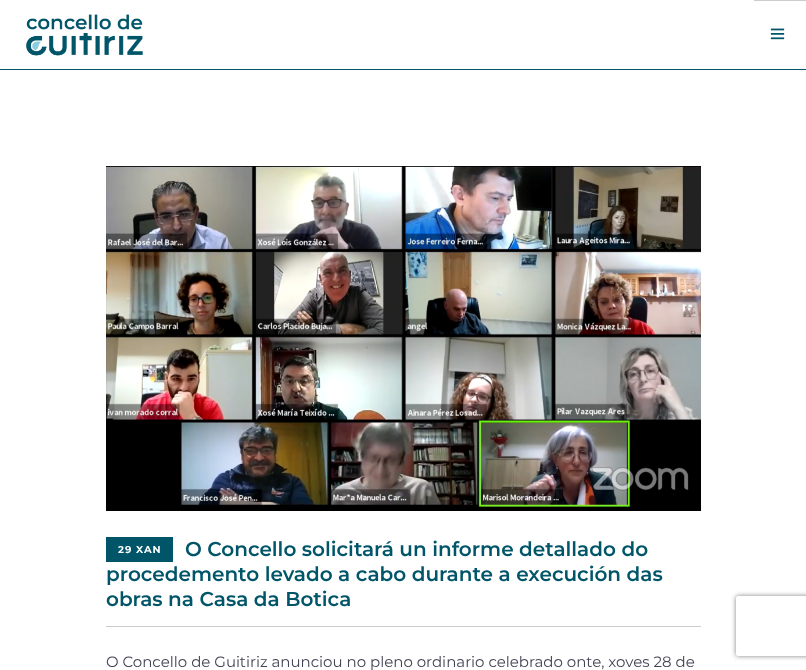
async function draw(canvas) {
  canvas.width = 806;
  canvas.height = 670;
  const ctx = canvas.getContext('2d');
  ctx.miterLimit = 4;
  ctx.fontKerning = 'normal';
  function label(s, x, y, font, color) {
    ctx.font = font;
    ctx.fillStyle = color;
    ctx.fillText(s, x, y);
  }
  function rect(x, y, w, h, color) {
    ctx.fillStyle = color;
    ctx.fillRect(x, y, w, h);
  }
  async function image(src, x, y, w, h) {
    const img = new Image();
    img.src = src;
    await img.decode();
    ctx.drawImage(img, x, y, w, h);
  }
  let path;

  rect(0, 0, 806, 670, '#fff');
  rect(0, 69, 806, 1, '#005568');
  await image('assets/img1.png', 26, 14, 118, 42);
  rect(754, 0, 52, 1, '#ccc');
  await image('assets/img2.png', 770, 28, 15, 12);
  await image('assets/img3.png', 106, 166, 595, 345);
  rect(106, 537, 67, 25, '#005568');
  ctx.letterSpacing = '1px';
  label('29 XAN', 118, 553, 'bold 10px Montserrat', '#fff');
  ctx.letterSpacing = '0px';
  label('O Concello solicitará un informe detallado do', 185, 556, '600 20px Montserrat', '#005568');
  label('procedemento levado a cabo durante a execución das', 106, 581, '600 20px Montserrat', '#005568');
  label('obras na Casa da Botica', 106, 606, '600 20px Montserrat', '#005568');
  rect(106, 626, 595, 1, '#ccc');
  label('O Concello de Guitiriz anunciou no pleno ordinario celebrado onte, xoves 28 de', 106, 667, '15px Montserrat', '#454455');
  ctx.save();
  path = new Path2D('M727 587H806V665H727ZM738 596H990C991 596 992 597 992 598V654C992 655 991 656 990 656H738C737 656 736 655 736 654V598C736 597 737 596 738 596Z');
  ctx.clip(path, 'evenodd');
  ctx.fillStyle = '#808080';
  ctx.filter = 'blur(2.5px)';
  ctx.beginPath();
  ctx.roundRect(736, 596, 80, 60, 2);
  ctx.fill();
  ctx.filter = 'none';
  ctx.restore();
}

draw(document.querySelector('canvas'));
